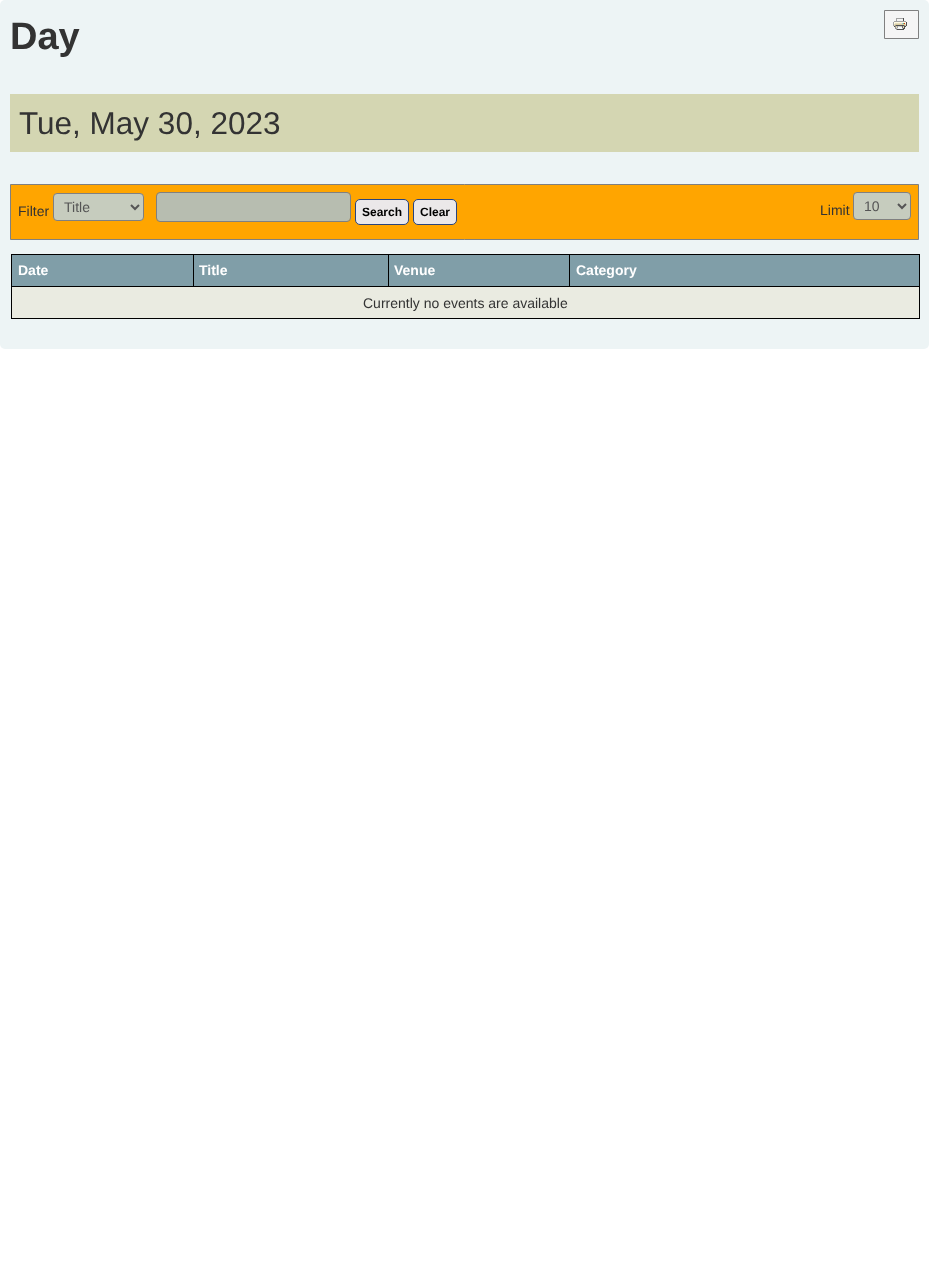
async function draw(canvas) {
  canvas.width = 929;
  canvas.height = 1264;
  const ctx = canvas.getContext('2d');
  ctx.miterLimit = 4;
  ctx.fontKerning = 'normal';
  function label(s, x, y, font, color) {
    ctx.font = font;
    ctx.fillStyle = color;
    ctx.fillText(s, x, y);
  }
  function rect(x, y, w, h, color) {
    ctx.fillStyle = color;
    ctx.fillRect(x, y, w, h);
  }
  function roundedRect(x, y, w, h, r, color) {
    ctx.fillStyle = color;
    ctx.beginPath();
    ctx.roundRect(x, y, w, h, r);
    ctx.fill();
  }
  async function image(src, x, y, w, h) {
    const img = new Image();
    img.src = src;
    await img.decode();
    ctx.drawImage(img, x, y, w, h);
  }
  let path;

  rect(0, 0, 929, 1264, '#fff');
  roundedRect(0, 0, 929, 349, 5, '#edf4f5');
  label('Day', 10, 49, 'bold 38px Liberation Sans', '#333');
  ctx.fillStyle = '#f5f5f5';
  ctx.beginPath();
  ctx.rect(884.5, 10.5, 34, 28);
  ctx.fill();
  ctx.strokeStyle = '#808080';
  ctx.stroke();
  await image('assets/img1.png', 893, 18, 14, 12);
  rect(10, 94, 909, 58, '#d4d6b2');
  label('Tue, May 30, 2023', 19, 134, '31.5px Liberation Sans', '#333');
  ctx.fillStyle = '#ffa500';
  ctx.beginPath();
  ctx.rect(10.5, 184.5, 908, 55);
  ctx.fill();
  ctx.stroke();
  label('Filter', 18, 216, '14px Liberation Sans', '#333');
  ctx.fillStyle = '#c6ccbe';
  ctx.beginPath();
  ctx.roundRect(53.5, 193.5, 90, 27, 3.5);
  ctx.fill();
  ctx.stroke();
  path = new Path2D('M131 205L135 209L139 205');
  ctx.strokeStyle = '#555';
  ctx.lineWidth = 2;
  ctx.stroke(path);
  label('Title', 64, 212, '14px Liberation Sans', '#555');
  ctx.fillStyle = '#b7bdb0';
  path = new Path2D('M160 193C158 193 157 194 157 196V218C157 220 158 221 160 221H347C349 221 350 220 350 218V196C350 194 349 193 347 193Z');
  ctx.fill(path);
  ctx.beginPath();
  ctx.roundRect(156.5, 192.5, 194, 29, 3.5);
  ctx.strokeStyle = '#808080';
  ctx.lineWidth = 1;
  ctx.stroke();
  ctx.fillStyle = '#ebe8e9';
  ctx.beginPath();
  ctx.roundRect(355.5, 199.5, 53, 25, 4.5);
  ctx.fill();
  ctx.strokeStyle = '#29447e';
  ctx.stroke();
  label('Search', 362, 216, 'bold 12px Liberation Sans', '#000');
  ctx.fillStyle = '#ebe8e9';
  ctx.beginPath();
  ctx.roundRect(413.5, 199.5, 43, 25, 4.5);
  ctx.fill();
  ctx.stroke();
  label('Clear', 420, 216, 'bold 12px Liberation Sans', '#000');
  label('Limit', 820, 215, '14px Liberation Sans', '#333');
  ctx.fillStyle = '#c6ccbe';
  ctx.beginPath();
  ctx.roundRect(853.5, 192.5, 57, 27, 3.5);
  ctx.fill();
  ctx.strokeStyle = '#808080';
  ctx.stroke();
  path = new Path2D('M898 204L902 208L906 204');
  ctx.strokeStyle = '#555';
  ctx.lineWidth = 2;
  ctx.stroke(path);
  label('10', 864, 211, '14px Liberation Sans', '#555');
  rect(12, 255, 181, 31, '#809ea8');
  rect(569, 254, 351, 1, '#000');
  rect(11, 286, 909, 1, '#000');
  rect(569, 254, 1, 33, '#000');
  rect(388, 254, 182, 1, '#000');
  rect(388, 254, 1, 33, '#000');
  rect(193, 254, 196, 1, '#000');
  rect(193, 254, 1, 33, '#000');
  rect(11, 254, 183, 1, '#000');
  rect(919, 286, 1, 33, '#000');
  rect(11, 318, 909, 1, '#000');
  rect(11, 286, 1, 33, '#000');
  rect(11, 254, 1, 33, '#000');
  label('Date', 18, 275, 'bold 14px Liberation Sans', '#fff');
  rect(194, 255, 194, 31, '#809ea8');
  label('Title', 199, 275, 'bold 14px Liberation Sans', '#fff');
  rect(389, 255, 180, 31, '#809ea8');
  label('Venue', 394, 275, 'bold 14px Liberation Sans', '#fff');
  rect(570, 255, 349, 31, '#809ea8');
  rect(919, 254, 1, 33, '#000');
  label('Category', 576, 275, 'bold 14px Liberation Sans', '#fff');
  rect(12, 287, 907, 31, '#eaebe1');
  label('Currently no events are available', 363, 308, '14px Liberation Sans', '#333');
}

draw(document.querySelector('canvas'));
